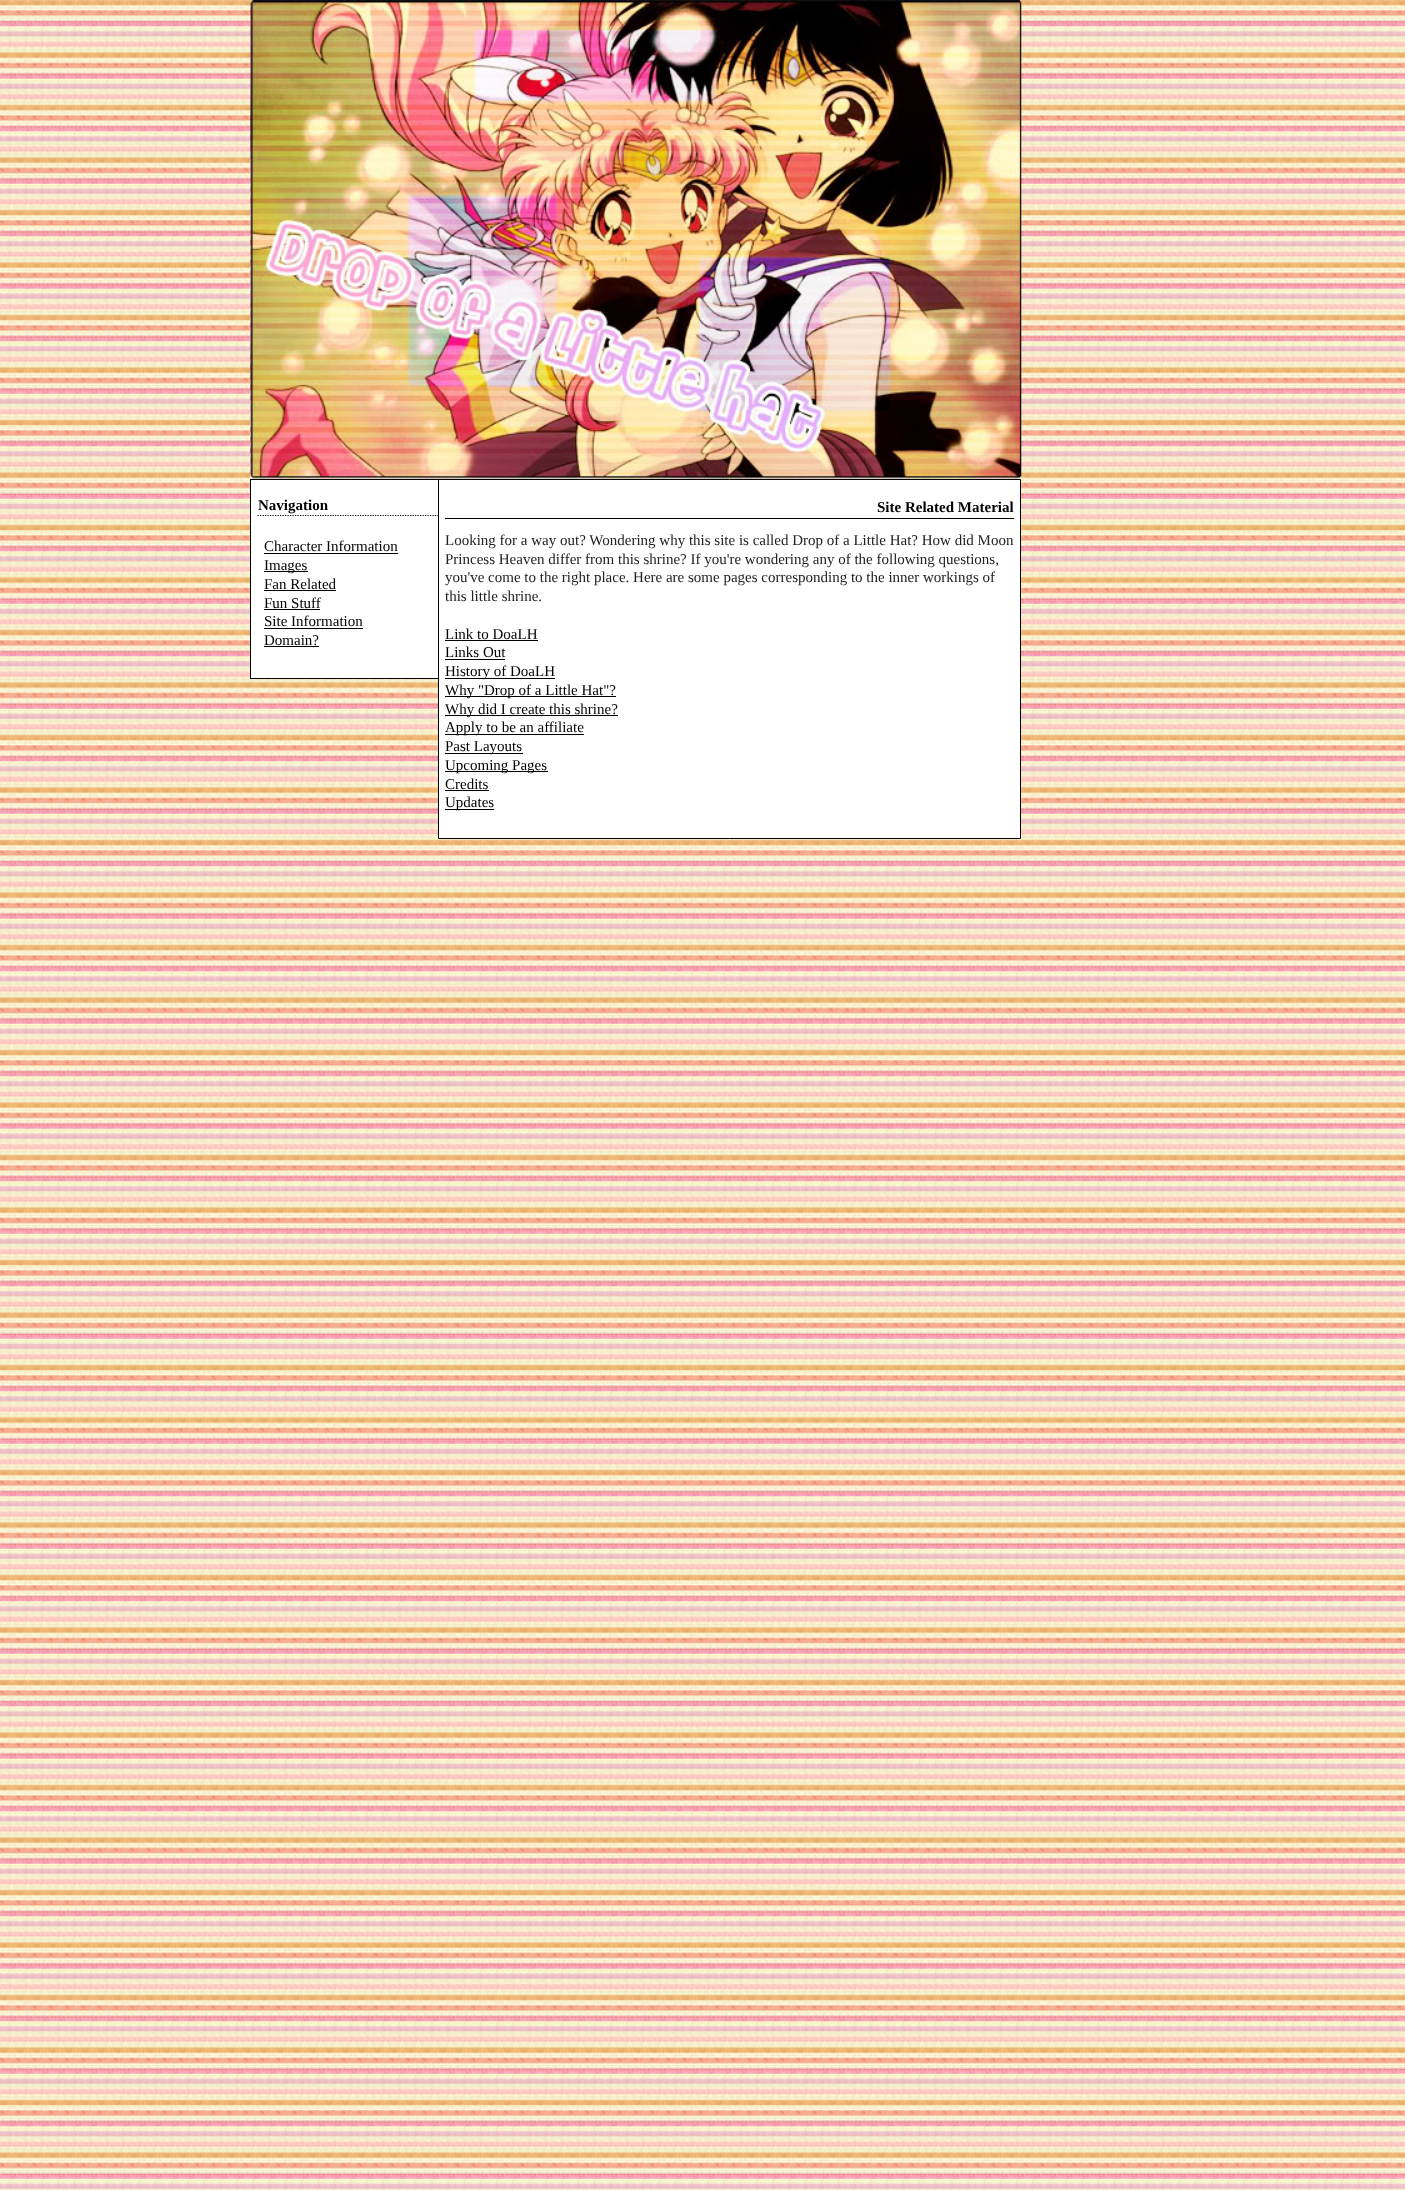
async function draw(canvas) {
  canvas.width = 1405;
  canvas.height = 2190;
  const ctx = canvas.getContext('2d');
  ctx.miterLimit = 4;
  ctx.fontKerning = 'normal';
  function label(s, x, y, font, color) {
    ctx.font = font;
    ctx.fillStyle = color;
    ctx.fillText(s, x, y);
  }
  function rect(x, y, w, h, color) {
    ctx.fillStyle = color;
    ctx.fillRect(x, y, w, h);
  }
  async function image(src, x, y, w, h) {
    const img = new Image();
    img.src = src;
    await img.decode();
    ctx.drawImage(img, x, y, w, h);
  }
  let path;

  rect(0, 0, 1405, 2190, '#fff');
  await image('assets/img1.png', 0, 0, 1405, 2190);
  await image('assets/img2.png', 250, 0, 772, 479);
  rect(251, 480, 187, 198, '#fff');
  ctx.strokeStyle = '#000';
  ctx.strokeRect(250.5, 479.5, 202, 199);
  path = new Path2D('M257.5 515.5H445');
  ctx.lineWidth = 1.2;
  ctx.setLineDash([1.25, 1.25]);
  ctx.stroke(path);
  label('Navigation', 258, 510, 'bold 15px Liberation Serif', '#000');
  label('Character Information', 264, 551, '15px Liberation Serif', '#000');
  rect(264, 553, 134, 1, '#000');
  rect(264, 571, 44, 1, '#000');
  label('Images', 264, 570, '15px Liberation Serif', '#000');
  label('Fan Related', 264, 589, '15px Liberation Serif', '#000');
  rect(264, 590, 72, 1, '#000');
  label('Fun Stuff', 264, 608, '15px Liberation Serif', '#000');
  rect(264, 609, 56, 1, '#000');
  label('Site Information', 264, 626, '15px Liberation Serif', '#000');
  rect(264, 628, 99, 1, '#000');
  label('Domain?', 264, 645, '15px Liberation Serif', '#000');
  rect(264, 646, 55, 1, '#000');
  ctx.fillStyle = '#fff';
  ctx.beginPath();
  ctx.rect(438.5, 479.5, 582, 359);
  ctx.fill();
  ctx.lineWidth = 1;
  ctx.setLineDash([]);
  ctx.stroke();
  rect(445, 518, 569, 1, '#000');
  label('Site Related Material', 877, 512, 'bold 15px Liberation Serif', '#000');
  label('Looking for a way out? Wondering why this site is called Drop of a Little Hat? How did Moon', 445, 545, '15px Liberation Serif', '#222');
  label('Princess Heaven differ from this shrine? If you\'re wondering any of the following questions,', 445, 564, '15px Liberation Serif', '#222');
  label('you\'ve come to the right place. Here are some pages corresponding to the inner workings of', 445, 582, '15px Liberation Serif', '#222');
  label('this little shrine.', 445, 601, '15px Liberation Serif', '#222');
  label('Link to DoaLH', 445, 639, '15px Liberation Serif', '#000');
  rect(445, 640, 93, 1, '#000');
  label('Links Out', 445, 657, '15px Liberation Serif', '#000');
  rect(445, 659, 60, 1, '#000');
  rect(445, 678, 110, 1, '#000');
  label('History of DoaLH', 445, 676, '15px Liberation Serif', '#000');
  rect(445, 696, 171, 1, '#000');
  label('Why "Drop of a Little Hat"?', 445, 695, '15px Liberation Serif', '#000');
  rect(445, 715, 173, 1, '#000');
  label('Why did I create this shrine?', 445, 714, '15px Liberation Serif', '#000');
  rect(445, 734, 139, 1, '#000');
  label('Apply to be an affiliate', 445, 732, '15px Liberation Serif', '#000');
  rect(445, 753, 78, 1, '#000');
  label('Past Layouts', 445, 751, '15px Liberation Serif', '#000');
  rect(445, 771, 103, 1, '#000');
  label('Upcoming Pages', 445, 770, '15px Liberation Serif', '#000');
  label('Credits', 445, 789, '15px Liberation Serif', '#000');
  rect(445, 790, 44, 1, '#000');
  rect(445, 809, 49, 1, '#000');
  label('Updates', 445, 807, '15px Liberation Serif', '#000');
}

draw(document.querySelector('canvas'));
